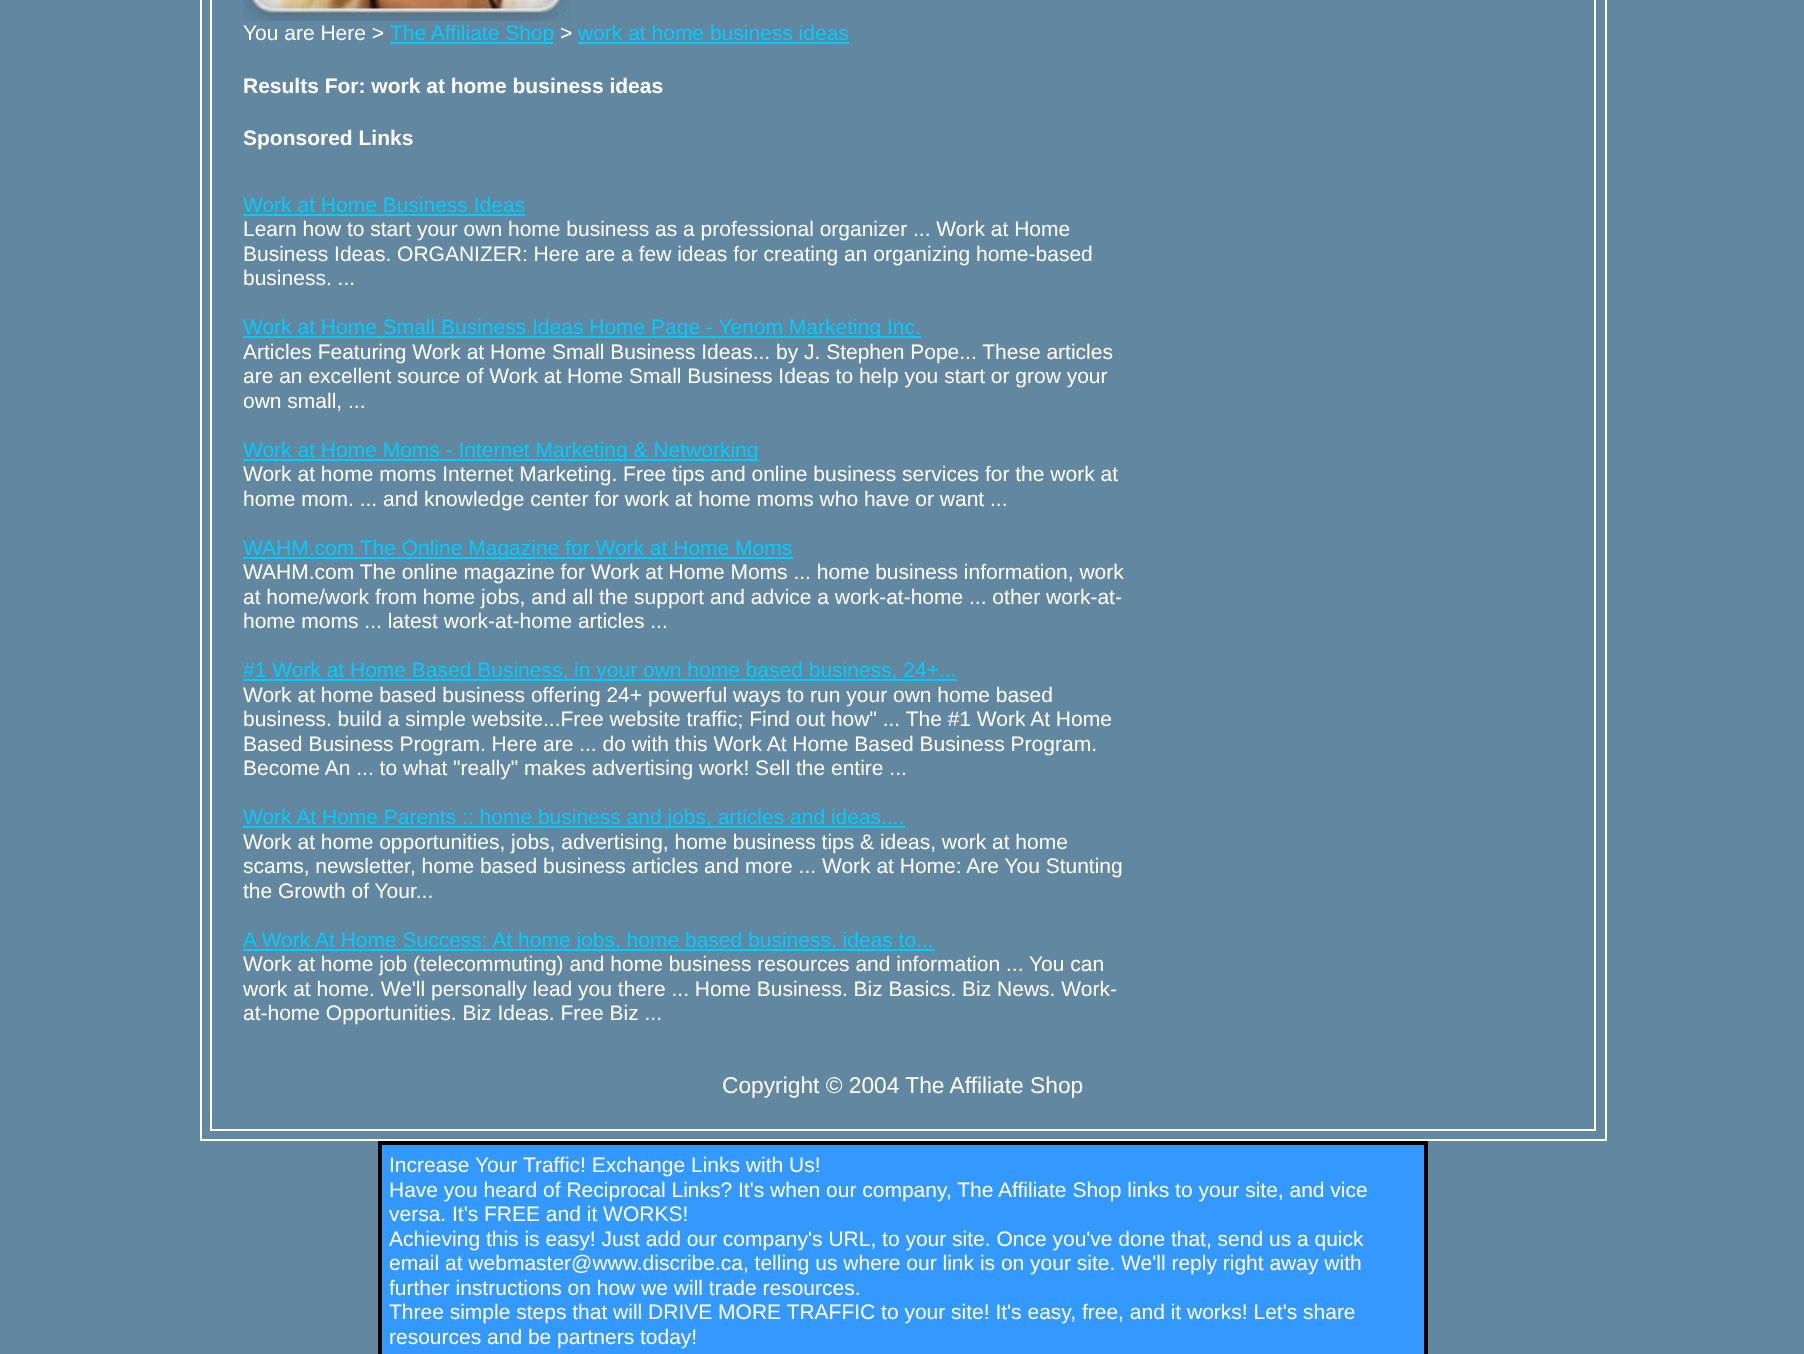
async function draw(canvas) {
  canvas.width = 1804;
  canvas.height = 1354;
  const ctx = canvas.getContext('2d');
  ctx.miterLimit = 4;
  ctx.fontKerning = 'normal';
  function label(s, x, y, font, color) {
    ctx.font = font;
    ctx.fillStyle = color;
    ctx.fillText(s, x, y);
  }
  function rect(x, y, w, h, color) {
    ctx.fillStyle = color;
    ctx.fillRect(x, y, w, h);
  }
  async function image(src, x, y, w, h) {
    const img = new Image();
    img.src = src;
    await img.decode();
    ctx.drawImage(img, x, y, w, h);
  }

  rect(0, 0, 1804, 1354, '#6287a1');
  ctx.strokeStyle = '#fff';
  ctx.lineWidth = 2;
  ctx.strokeRect(201, -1, 1405, 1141);
  ctx.strokeRect(211, -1, 1384, 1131);
  await image('assets/img1.png', 243, 0, 329, 21);
  label('You are Here >', 243, 40, '21px Liberation Sans', '#fff');
  rect(390, 42, 163, 2, '#0cf');
  label('The Affiliate Shop', 390, 40, '21px Liberation Sans', '#0cf');
  label('>', 560, 40, '21px Liberation Sans', '#fff');
  label('work at home business ideas', 578, 40, '21px Liberation Sans', '#0cf');
  rect(578, 42, 271, 2, '#0cf');
  label('Results For: work at home business ideas', 243, 93, 'bold 21px Liberation Sans', '#fff');
  label('Sponsored Links', 243, 145, 'bold 21px Liberation Sans', '#fff');
  label('Work at Home Business Ideas', 243, 212, '21px Liberation Sans', '#0cf');
  rect(243, 214, 282, 2, '#0cf');
  label('Learn how to start your own home business as a professional organizer ... Work at Home', 243, 236, '21px Liberation Sans', '#fff');
  label('Business Ideas. ORGANIZER: Here are a few ideas for creating an organizing home-based', 243, 261, '21px Liberation Sans', '#fff');
  label('business. ...', 243, 285, '21px Liberation Sans', '#fff');
  rect(243, 336, 678, 2, '#0cf');
  label('Work at Home Small Business Ideas Home Page - Yenom Marketing Inc.', 243, 334, '21px Liberation Sans', '#0cf');
  label('Articles Featuring Work at Home Small Business Ideas... by J. Stephen Pope... These articles', 243, 359, '21px Liberation Sans', '#fff');
  label('are an excellent source of Work at Home Small Business Ideas to help you start or grow your', 243, 383, '21px Liberation Sans', '#fff');
  label('own small, ...', 243, 408, '21px Liberation Sans', '#fff');
  rect(243, 459, 515, 2, '#0cf');
  label('Work at Home Moms - Internet Marketing & Networking', 243, 457, '21px Liberation Sans', '#0cf');
  label('Work at home moms Internet Marketing. Free tips and online business services for the work at', 243, 481, '21px Liberation Sans', '#fff');
  label('home mom. ... and knowledge center for work at home moms who have or want ...', 243, 506, '21px Liberation Sans', '#fff');
  rect(243, 557, 550, 2, '#0cf');
  label('WAHM.com The Online Magazine for Work at Home Moms', 243, 555, '21px Liberation Sans', '#0cf');
  label('WAHM.com The online magazine for Work at Home Moms ... home business information, work', 243, 579, '21px Liberation Sans', '#fff');
  label('at home/work from home jobs, and all the support and advice a work-at-home ... other work-at-', 243, 604, '21px Liberation Sans', '#fff');
  label('home moms ... latest work-at-home articles ...', 243, 628, '21px Liberation Sans', '#fff');
  rect(243, 679, 714, 2, '#0cf');
  label('#1 Work at Home Based Business, in your own home based business, 24+...', 243, 677, '21px Liberation Sans', '#0cf');
  label('Work at home based business offering 24+ powerful ways to run your own home based', 243, 702, '21px Liberation Sans', '#fff');
  label('business. build a simple website...Free website traffic; Find out how" ... The #1 Work At Home', 243, 726, '21px Liberation Sans', '#fff');
  label('Based Business Program. Here are ... do with this Work At Home Based Business Program.', 243, 751, '21px Liberation Sans', '#fff');
  label('Become An ... to what "really" makes advertising work! Sell the entire ...', 243, 775, '21px Liberation Sans', '#fff');
  rect(243, 826, 662, 2, '#0cf');
  label('Work At Home Parents :: home business and jobs, articles and ideas....', 243, 824, '21px Liberation Sans', '#0cf');
  label('Work at home opportunities, jobs, advertising, home business tips & ideas, work at home', 243, 849, '21px Liberation Sans', '#fff');
  label('scams, newsletter, home based business articles and more ... Work at Home: Are You Stunting', 243, 873, '21px Liberation Sans', '#fff');
  label('the Growth of Your...', 243, 898, '21px Liberation Sans', '#fff');
  rect(243, 949, 692, 2, '#0cf');
  label('A Work At Home Success: At home jobs, home based business, ideas to...', 243, 947, '21px Liberation Sans', '#0cf');
  label('Work at home job (telecommuting) and home business resources and information ... You can', 243, 971, '21px Liberation Sans', '#fff');
  label('work at home. We\'ll personally lead you there ... Home Business. Biz Basics. Biz News. Work-', 243, 996, '21px Liberation Sans', '#fff');
  label('at-home Opportunities. Biz Ideas. Free Biz ...', 243, 1020, '21px Liberation Sans', '#fff');
  label('Copyright © 2004 The Affiliate Shop', 722, 1093, '22.75px Liberation Sans', '#fff');
  ctx.strokeStyle = '#000';
  ctx.strokeRect(379, 1142, 1048, 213);
  ctx.fillStyle = '#39f';
  ctx.beginPath();
  ctx.rect(381, 1144, 1044, 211);
  ctx.fill();
  ctx.stroke();
  label('Increase Your Traffic! Exchange Links with Us!', 389, 1172, '21px Liberation Sans', '#fff');
  label('Have you heard of Reciprocal Links? It\'s when our company, The Affiliate Shop links to your site, and vice', 389, 1197, '21px Liberation Sans', '#fff');
  label('versa. It\'s FREE and it WORKS!', 389, 1221, '21px Liberation Sans', '#fff');
  label('Achieving this is easy! Just add our company\'s URL, to your site. Once you\'ve done that, send us a quick', 389, 1246, '21px Liberation Sans', '#fff');
  label('email at webmaster@www.discribe.ca, telling us where our link is on your site. We\'ll reply right away with', 389, 1270, '21px Liberation Sans', '#fff');
  label('further instructions on how we will trade resources.', 389, 1295, '21px Liberation Sans', '#fff');
  label('Three simple steps that will DRIVE MORE TRAFFIC to your site! It\'s easy, free, and it works! Let\'s share', 389, 1319, '21px Liberation Sans', '#fff');
  label('resources and be partners today!', 389, 1344, '21px Liberation Sans', '#fff');
}

draw(document.querySelector('canvas'));
